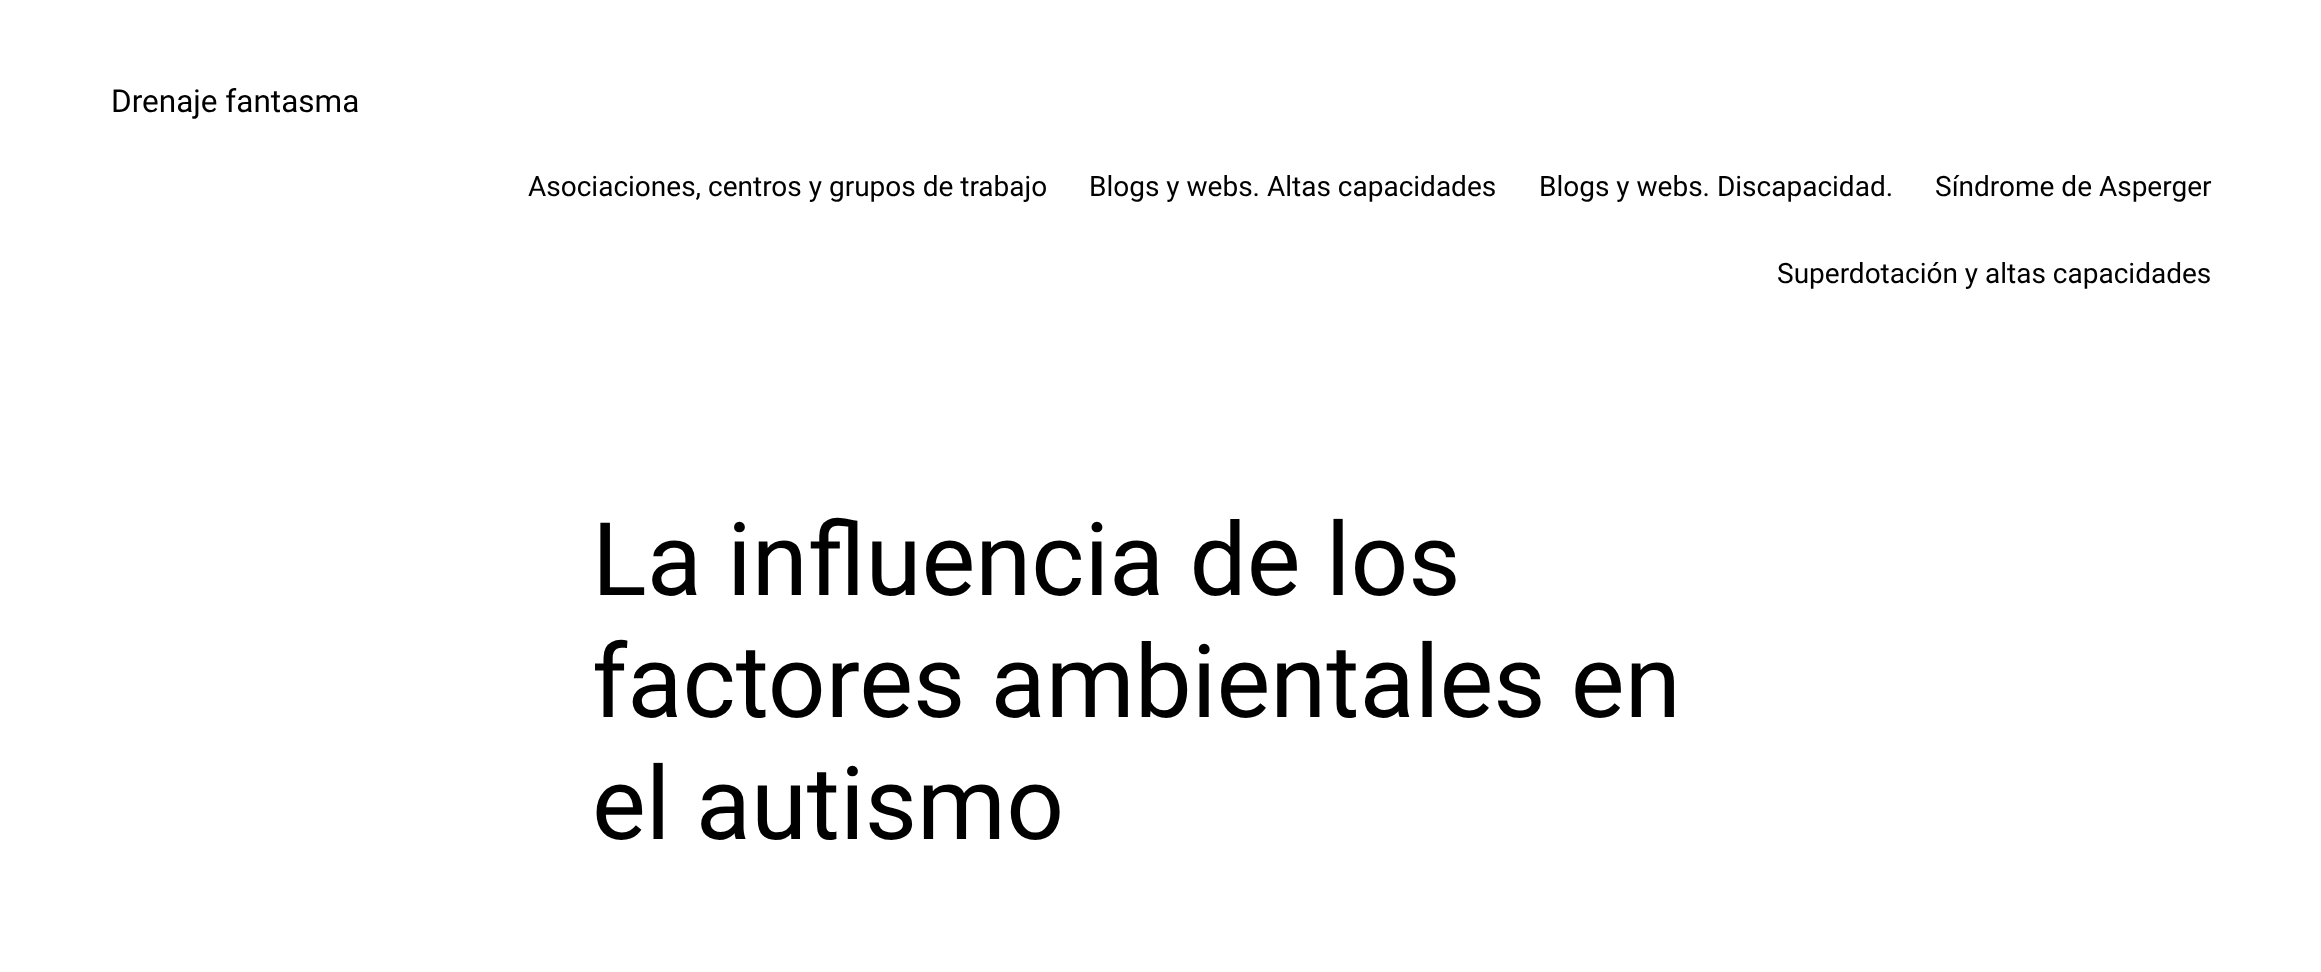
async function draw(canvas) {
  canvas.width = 2321;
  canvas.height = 972;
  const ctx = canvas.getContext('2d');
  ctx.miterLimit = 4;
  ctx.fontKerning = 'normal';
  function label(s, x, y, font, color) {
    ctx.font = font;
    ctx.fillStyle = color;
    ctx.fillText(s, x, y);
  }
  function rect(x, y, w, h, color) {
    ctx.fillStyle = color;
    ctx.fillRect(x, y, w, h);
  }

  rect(0, 0, 2321, 972, '#fff');
  label('Drenaje fantasma', 111, 112, '31.5px Roboto', '#000');
  label('Asociaciones, centros y grupos de trabajo', 528, 196, '28px Roboto', '#000');
  label('Blogs y webs. Altas capacidades', 1089, 196, '28px Roboto', '#000');
  label('Blogs y webs. Discapacidad.', 1539, 196, '28px Roboto', '#000');
  label('Síndrome de Asperger', 1935, 196, '28px Roboto', '#000');
  label('Superdotación y altas capacidades', 1777, 283, '28px Roboto', '#000');
  label('La influencia de los', 592, 595, '101.5px Roboto', '#000');
  label('factores ambientales en', 592, 717, '101.5px Roboto', '#000');
  label('el autismo', 592, 839, '101.5px Roboto', '#000');
}

draw(document.querySelector('canvas'));
